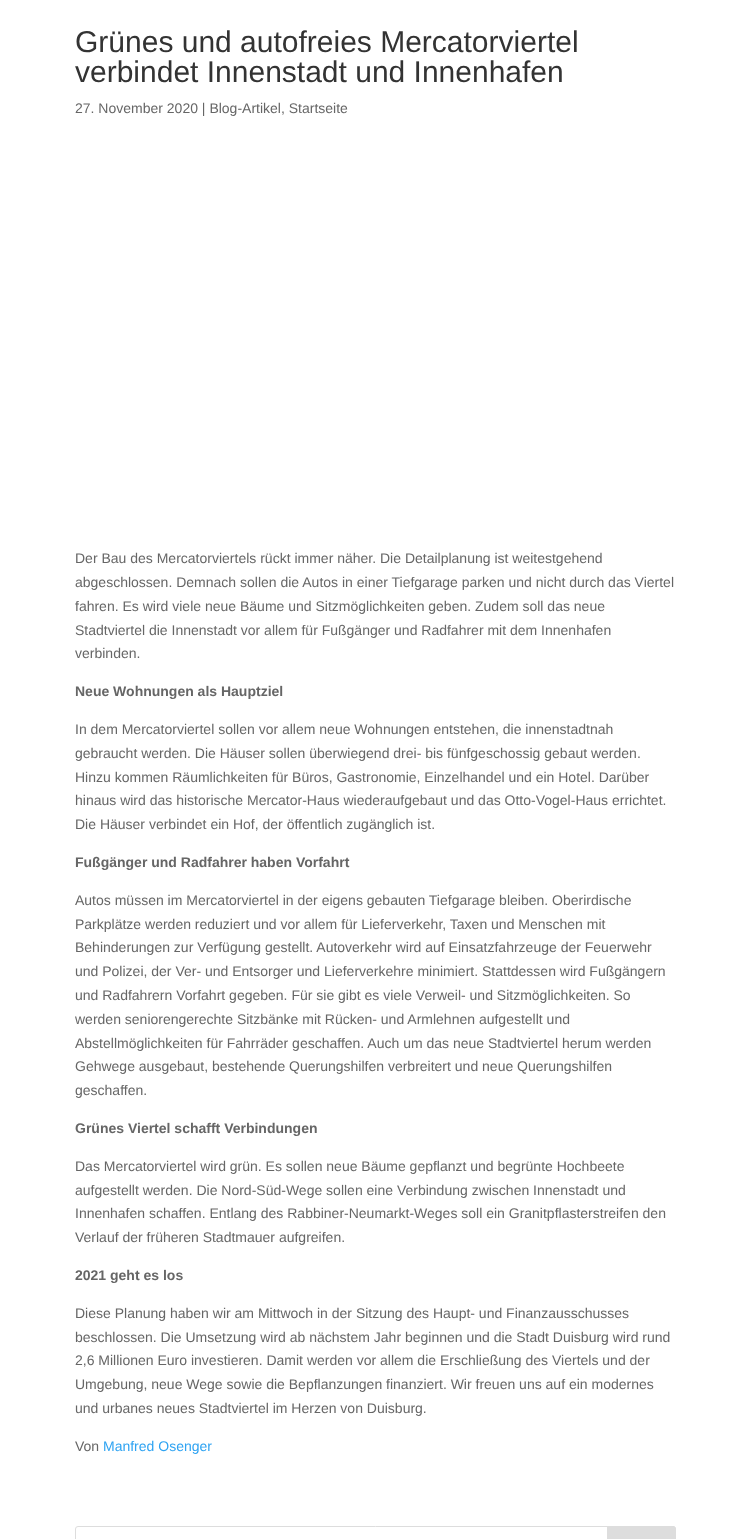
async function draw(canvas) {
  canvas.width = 751;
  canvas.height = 1539;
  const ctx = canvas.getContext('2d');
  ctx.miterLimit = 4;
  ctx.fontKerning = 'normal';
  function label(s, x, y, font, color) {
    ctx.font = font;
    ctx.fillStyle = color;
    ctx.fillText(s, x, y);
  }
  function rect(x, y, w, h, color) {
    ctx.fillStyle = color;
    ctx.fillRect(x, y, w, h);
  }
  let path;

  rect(0, 0, 751, 1539, '#fff');
  label('Grünes und autofreies Mercatorviertel', 75, 52, '30px Liberation Sans', '#333');
  label('verbindet Innenstadt und Innenhafen', 75, 82, '30px Liberation Sans', '#333');
  label('27. November 2020 | Blog-Artikel, Startseite', 75, 113, '14px Liberation Sans', '#666');
  label('Der Bau des Mercatorviertels rückt immer näher. Die Detailplanung ist weitestgehend', 75, 563, '14px Liberation Sans', '#666');
  label('abgeschlossen. Demnach sollen die Autos in einer Tiefgarage parken und nicht durch das Viertel', 75, 587, '14px Liberation Sans', '#666');
  label('fahren. Es wird viele neue Bäume und Sitzmöglichkeiten geben. Zudem soll das neue', 75, 611, '14px Liberation Sans', '#666');
  label('Stadtviertel die Innenstadt vor allem für Fußgänger und Radfahrer mit dem Innenhafen', 75, 635, '14px Liberation Sans', '#666');
  label('verbinden.', 75, 658, '14px Liberation Sans', '#666');
  label('Neue Wohnungen als Hauptziel', 75, 696, 'bold 14px Liberation Sans', '#666');
  label('In dem Mercatorviertel sollen vor allem neue Wohnungen entstehen, die innenstadtnah', 75, 734, '14px Liberation Sans', '#666');
  label('gebraucht werden. Die Häuser sollen überwiegend drei- bis fünfgeschossig gebaut werden.', 75, 758, '14px Liberation Sans', '#666');
  label('Hinzu kommen Räumlichkeiten für Büros, Gastronomie, Einzelhandel und ein Hotel. Darüber', 75, 782, '14px Liberation Sans', '#666');
  label('hinaus wird das historische Mercator-Haus wiederaufgebaut und das Otto-Vogel-Haus errichtet.', 75, 805, '14px Liberation Sans', '#666');
  label('Die Häuser verbindet ein Hof, der öffentlich zugänglich ist.', 75, 829, '14px Liberation Sans', '#666');
  label('Fußgänger und Radfahrer haben Vorfahrt', 75, 867, 'bold 14px Liberation Sans', '#666');
  label('Autos müssen im Mercatorviertel in der eigens gebauten Tiefgarage bleiben. Oberirdische', 75, 905, '14px Liberation Sans', '#666');
  label('Parkplätze werden reduziert und vor allem für Lieferverkehr, Taxen und Menschen mit', 75, 929, '14px Liberation Sans', '#666');
  label('Behinderungen zur Verfügung gestellt. Autoverkehr wird auf Einsatzfahrzeuge der Feuerwehr', 75, 952, '14px Liberation Sans', '#666');
  label('und Polizei, der Ver- und Entsorger und Lieferverkehre minimiert. Stattdessen wird Fußgängern', 75, 976, '14px Liberation Sans', '#666');
  label('und Radfahrern Vorfahrt gegeben. Für sie gibt es viele Verweil- und Sitzmöglichkeiten. So', 75, 1000, '14px Liberation Sans', '#666');
  label('werden seniorengerechte Sitzbänke mit Rücken- und Armlehnen aufgestellt und', 75, 1024, '14px Liberation Sans', '#666');
  label('Abstellmöglichkeiten für Fahrräder geschaffen. Auch um das neue Stadtviertel herum werden', 75, 1048, '14px Liberation Sans', '#666');
  label('Gehwege ausgebaut, bestehende Querungshilfen verbreitert und neue Querungshilfen', 75, 1071, '14px Liberation Sans', '#666');
  label('geschaffen.', 75, 1095, '14px Liberation Sans', '#666');
  label('Grünes Viertel schafft Verbindungen', 75, 1133, 'bold 14px Liberation Sans', '#666');
  label('Das Mercatorviertel wird grün. Es sollen neue Bäume gepflanzt und begrünte Hochbeete', 75, 1171, '14px Liberation Sans', '#666');
  label('aufgestellt werden. Die Nord-Süd-Wege sollen eine Verbindung zwischen Innenstadt und', 75, 1195, '14px Liberation Sans', '#666');
  label('Innenhafen schaffen. Entlang des Rabbiner-Neumarkt-Weges soll ein Granitpflasterstreifen den', 75, 1218, '14px Liberation Sans', '#666');
  label('Verlauf der früheren Stadtmauer aufgreifen.', 75, 1242, '14px Liberation Sans', '#666');
  label('2021 geht es los', 75, 1280, 'bold 14px Liberation Sans', '#666');
  label('Diese Planung haben wir am Mittwoch in der Sitzung des Haupt- und Finanzausschusses', 75, 1318, '14px Liberation Sans', '#666');
  label('beschlossen. Die Umsetzung wird ab nächstem Jahr beginnen und die Stadt Duisburg wird rund', 75, 1342, '14px Liberation Sans', '#666');
  label('2,6 Millionen Euro investieren. Damit werden vor allem die Erschließung des Viertels und der', 75, 1365, '14px Liberation Sans', '#666');
  label('Umgebung, neue Wege sowie die Bepflanzungen finanziert. Wir freuen uns auf ein modernes', 75, 1389, '14px Liberation Sans', '#666');
  label('und urbanes neues Stadtviertel im Herzen von Duisburg.', 75, 1413, '14px Liberation Sans', '#666');
  label('Von', 75, 1451, '14px Liberation Sans', '#666');
  label('Manfred Osenger', 103, 1451, '14px Liberation Sans', '#2ea3f2');
  ctx.beginPath();
  ctx.roundRect(75.5, 1526.5, 600, 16, 2.5);
  ctx.strokeStyle = '#ddd';
  ctx.stroke();
  ctx.fillStyle = '#ddd';
  path = new Path2D('M607.5 1526.5H673C674.5 1526.5 675.5 1527.5 675.5 1529V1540C675.5 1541.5 674.5 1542.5 673 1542.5H607.5Z');
  ctx.fill(path);
  ctx.stroke(path);
}

draw(document.querySelector('canvas'));
